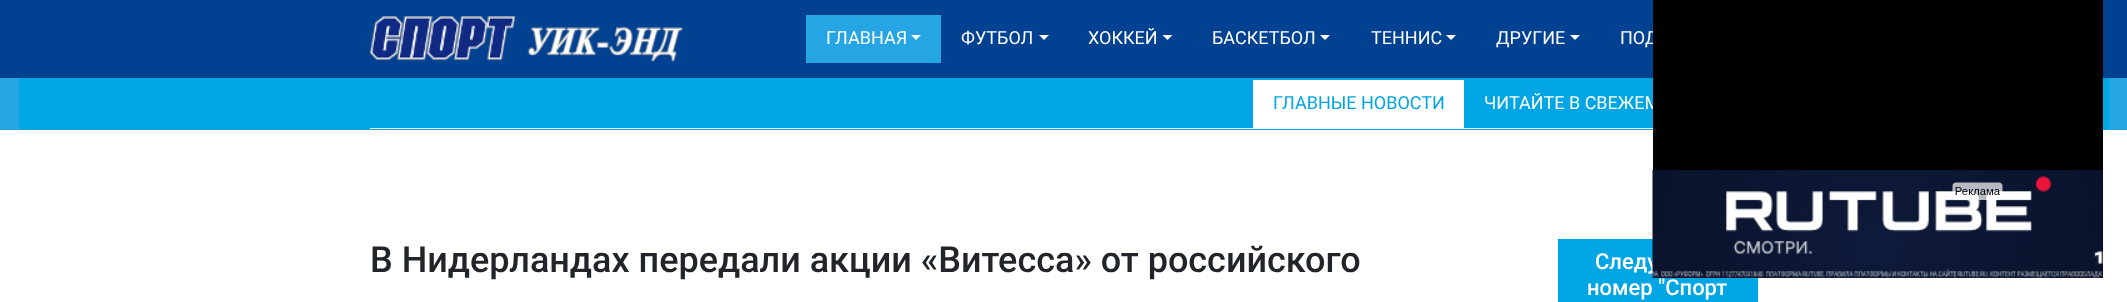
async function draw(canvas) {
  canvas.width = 2127;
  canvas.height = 302;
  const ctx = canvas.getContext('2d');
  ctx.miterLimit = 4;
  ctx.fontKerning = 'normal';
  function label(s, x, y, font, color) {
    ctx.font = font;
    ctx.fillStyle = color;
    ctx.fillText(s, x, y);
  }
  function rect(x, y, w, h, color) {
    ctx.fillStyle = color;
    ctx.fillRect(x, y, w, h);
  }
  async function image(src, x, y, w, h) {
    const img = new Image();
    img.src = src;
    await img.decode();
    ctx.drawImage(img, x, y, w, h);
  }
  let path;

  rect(0, 0, 2127, 302, '#fff');
  rect(0, 0, 2127, 78, '#004192');
  await image('assets/img1.png', 370, 16, 313, 46);
  rect(806, 15, 135, 48, '#25a5e4');
  label('ГЛАВНАЯ', 826, 44, '18px Roboto', '#fff');
  path = new Path2D('M911 35H921L916 40Z');
  ctx.fill(path);
  label('ФУТБОЛ', 961, 44, '18px Roboto', '#fff');
  path = new Path2D('M1039 35H1049L1044 40Z');
  ctx.fill(path);
  label('ХОККЕЙ', 1088, 44, '18px Roboto', '#fff');
  path = new Path2D('M1162.5 35H1172.5L1167.5 40Z');
  ctx.fill(path);
  label('БАСКЕТБОЛ', 1212, 44, '18px Roboto', '#fff');
  path = new Path2D('M1320 35H1330L1325 40Z');
  ctx.fill(path);
  label('ТЕННИС', 1371, 44, '18px Roboto', '#fff');
  path = new Path2D('M1446 35H1456L1451 40Z');
  ctx.fill(path);
  label('ДРУГИЕ', 1496, 44, '18px Roboto', '#fff');
  path = new Path2D('M1570 35H1580L1575 40Z');
  ctx.fill(path);
  label('ПОД', 1620, 44, '18px Roboto', '#fff');
  rect(0, 78, 2127, 52, '#25a5e4');
  rect(19, 78, 2090, 52, '#00a5e4');
  rect(370, 128, 1283, 1, '#fff');
  rect(1253, 80, 211, 48, '#fff');
  label('ГЛАВНЫЕ НОВОСТИ', 1273, 109, '18px Roboto', '#00a5e4');
  label('ЧИТАЙТЕ В СВЕЖЕМ', 1484, 109, '18px Roboto', '#fff');
  rect(1558, 239, 200, 63, '#00a5e4');
  label('Следу', 1595, 269, '500 22px Roboto', '#fff');
  rect(1653, 0, 450, 278, '#000');
  await image('assets/img2.png', 1652, 170, 451, 108);
  label('В Нидерландах передали акции «Витесса» от российского', 370, 272, '500 36px Roboto', '#212529');
  label('номер "Спорт', 1587, 295, '500 22px Roboto', '#fff');
}

draw(document.querySelector('canvas'));
